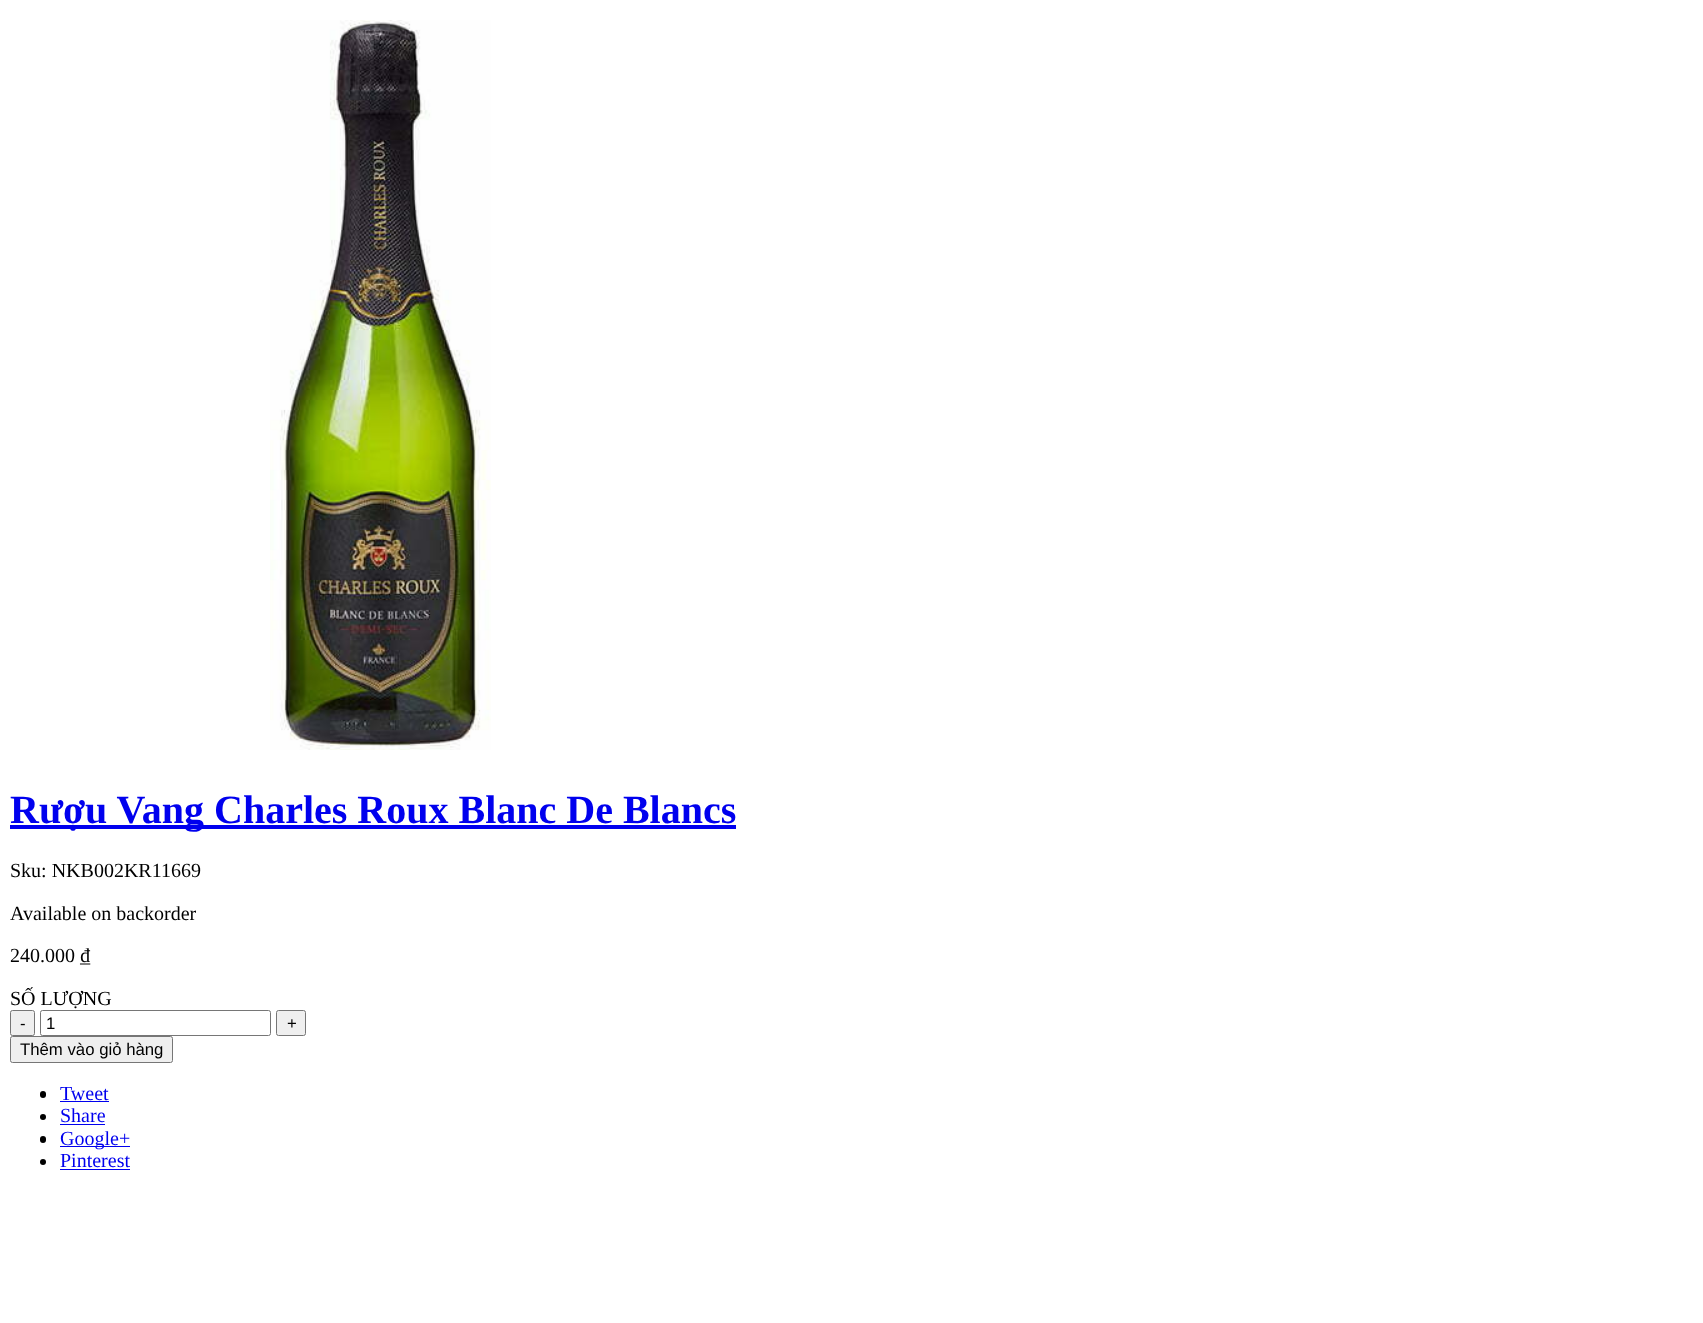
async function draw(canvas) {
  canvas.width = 1703;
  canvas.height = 1323;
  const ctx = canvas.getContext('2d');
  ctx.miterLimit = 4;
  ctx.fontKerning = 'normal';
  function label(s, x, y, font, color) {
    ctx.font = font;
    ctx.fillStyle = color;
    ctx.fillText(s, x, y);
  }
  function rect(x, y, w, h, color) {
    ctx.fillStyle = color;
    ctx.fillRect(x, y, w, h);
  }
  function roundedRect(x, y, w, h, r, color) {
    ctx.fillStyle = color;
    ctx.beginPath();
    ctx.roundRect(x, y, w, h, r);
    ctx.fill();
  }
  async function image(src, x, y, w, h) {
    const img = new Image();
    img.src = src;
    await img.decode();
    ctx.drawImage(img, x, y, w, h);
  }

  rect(0, 0, 1703, 1323, '#fff');
  await image('assets/img1.png', 270, 20, 221, 730);
  rect(10, 825, 726, 4, '#00e');
  label('Rượu Vang Charles Roux Blanc De Blancs', 10, 823, 'bold 40px Liberation Serif', '#00e');
  label('Sku: NKB002KR11669', 10, 877, '20px Liberation Serif', '#000');
  label('Available on backorder', 10, 920, '20px Liberation Serif', '#000');
  label('240.000 ₫', 10, 962, '20px Liberation Serif', '#000');
  label('SỐ LƯỢNG', 10, 1005, '20px Liberation Serif', '#000');
  ctx.fillStyle = '#efefef';
  ctx.beginPath();
  ctx.roundRect(10.5, 1010.5, 24, 25, 2);
  ctx.fill();
  ctx.strokeStyle = '#767676';
  ctx.stroke();
  label('-', 20, 1029, '16.75px Liberation Sans', '#000');
  ctx.beginPath();
  ctx.roundRect(40.5, 1010.5, 230, 25, 2);
  ctx.stroke();
  label('1', 46, 1029, '16.75px Liberation Sans', '#000');
  ctx.fillStyle = '#efefef';
  ctx.beginPath();
  ctx.roundRect(276.5, 1010.5, 29, 25, 2);
  ctx.fill();
  ctx.stroke();
  label('+', 287, 1029, '16.75px Liberation Sans', '#000');
  ctx.fillStyle = '#efefef';
  ctx.beginPath();
  ctx.roundRect(10.5, 1036.5, 162, 26, 2);
  ctx.fill();
  ctx.stroke();
  label('Thêm vào giỏ hàng', 20, 1055, '16.75px Liberation Sans', '#000');
  roundedRect(40, 1091, 6, 7, 3, '#000');
  label('Tweet', 60, 1100, '20px Liberation Serif', '#00e');
  rect(60, 1101, 49, 1, '#00e');
  ctx.fillStyle = '#000';
  ctx.beginPath();
  ctx.arc(43, 1117, 3, 0, 2 * Math.PI);
  ctx.fill();
  label('Share', 60, 1122, '20px Liberation Serif', '#00e');
  rect(60, 1124, 45, 1, '#00e');
  roundedRect(40, 1136, 6, 7, 3, '#000');
  rect(60, 1146, 70, 1, '#00e');
  label('Google+', 60, 1145, '20px Liberation Serif', '#00e');
  ctx.fillStyle = '#000';
  ctx.beginPath();
  ctx.arc(43, 1162, 3, 0, 2 * Math.PI);
  ctx.fill();
  label('Pinterest', 60, 1167, '20px Liberation Serif', '#00e');
  rect(60, 1169, 70, 1, '#00e');
}

draw(document.querySelector('canvas'));
